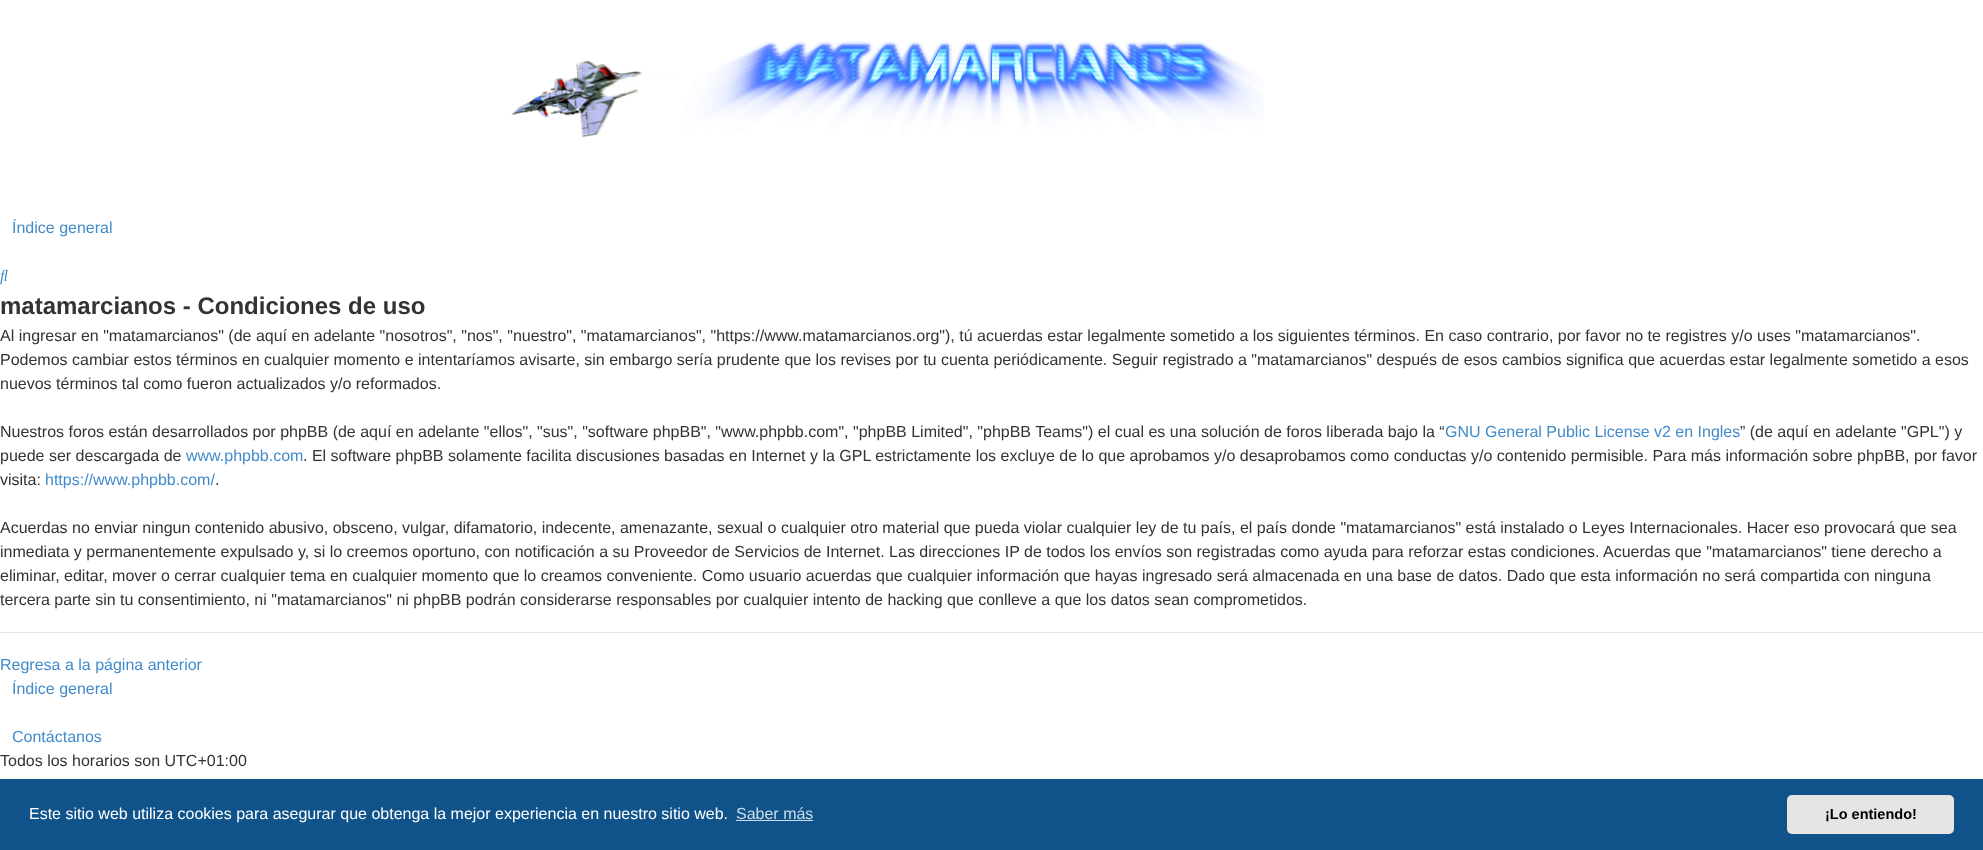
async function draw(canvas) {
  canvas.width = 1983;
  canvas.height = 850;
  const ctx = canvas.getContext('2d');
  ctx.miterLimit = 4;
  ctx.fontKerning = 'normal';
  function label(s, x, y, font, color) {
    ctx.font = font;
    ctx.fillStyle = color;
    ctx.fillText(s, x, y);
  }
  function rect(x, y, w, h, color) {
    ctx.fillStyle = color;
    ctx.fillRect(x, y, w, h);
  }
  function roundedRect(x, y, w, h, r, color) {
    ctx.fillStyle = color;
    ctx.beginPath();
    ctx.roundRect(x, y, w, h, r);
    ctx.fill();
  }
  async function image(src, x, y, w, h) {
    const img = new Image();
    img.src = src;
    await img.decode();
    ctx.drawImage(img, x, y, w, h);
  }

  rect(0, 0, 1983, 850, '#fff');
  await image('assets/img1.png', 511, 41, 753, 97);
  label('Índice general', 12, 233, '16px Liberation Sans', '#428bca');
  await image('assets/img2.png', 0, 269, 8, 16);
  label('matamarcianos - Condiciones de uso', 0, 314, 'bold 24px Liberation Sans', '#333');
  label('Al ingresar en "matamarcianos" (de aquí en adelante "nosotros", "nos", "nuestro", "matamarcianos", "https://www.matamarcianos.org"), tú acuerdas estar legalmente sometido a los siguientes términos. En caso contrario, por favor no te registres y/o uses "matamarcianos".', 0, 341, '16px Liberation Sans', '#333');
  label('Podemos cambiar estos términos en cualquier momento e intentaríamos avisarte, sin embargo sería prudente que los revises por tu cuenta periódicamente. Seguir registrado a "matamarcianos" después de esos cambios significa que acuerdas estar legalmente sometido a esos', 0, 365, '16px Liberation Sans', '#333');
  label('nuevos términos tal como fueron actualizados y/o reformados.', 0, 389, '16px Liberation Sans', '#333');
  label('Nuestros foros están desarrollados por phpBB (de aquí en adelante "ellos", "sus", "software phpBB", "www.phpbb.com", "phpBB Limited", "phpBB Teams") el cual es una solución de foros liberada bajo la “', 0, 437, '16px Liberation Sans', '#333');
  label('GNU General Public License v2 en Ingles', 1445, 437, '16px Liberation Sans', '#428bca');
  label('” (de aquí en adelante "GPL") y', 1740, 437, '16px Liberation Sans', '#333');
  label('puede ser descargada de', 0, 461, '16px Liberation Sans', '#333');
  label('www.phpbb.com', 186, 461, '16px Liberation Sans', '#428bca');
  label('. El software phpBB solamente facilita discusiones basadas en Internet y la GPL estrictamente los excluye de lo que aprobamos y/o desaprobamos como conductas y/o contenido permisible. Para más información sobre phpBB, por favor', 303, 461, '16px Liberation Sans', '#333');
  label('visita:', 0, 485, '16px Liberation Sans', '#333');
  label('https://www.phpbb.com/', 45, 485, '16px Liberation Sans', '#428bca');
  label('.', 215, 485, '16px Liberation Sans', '#333');
  label('Acuerdas no enviar ningun contenido abusivo, obsceno, vulgar, difamatorio, indecente, amenazante, sexual o cualquier otro material que pueda violar cualquier ley de tu país, el país donde "matamarcianos" está instalado o Leyes Internacionales. Hacer eso provocará que sea', 0, 533, '16px Liberation Sans', '#333');
  label('inmediata y permanentemente expulsado y, si lo creemos oportuno, con notificación a su Proveedor de Servicios de Internet. Las direcciones IP de todos los envíos son registradas como ayuda para reforzar estas condiciones. Acuerdas que "matamarcianos" tiene derecho a', 0, 557, '16px Liberation Sans', '#333');
  label('eliminar, editar, mover o cerrar cualquier tema en cualquier momento que lo creamos conveniente. Como usuario acuerdas que cualquier información que hayas ingresado será almacenada en una base de datos. Dado que esta información no será compartida con ninguna', 0, 581, '16px Liberation Sans', '#333');
  label('tercera parte sin tu consentimiento, ni "matamarcianos" ni phpBB podrán considerarse responsables por cualquier intento de hacking que conlleve a que los datos sean comprometidos.', 0, 605, '16px Liberation Sans', '#333');
  rect(0, 632, 1983, 1, '#e5e5e5');
  label('Regresa a la página anterior', 0, 670, '16px Liberation Sans', '#428bca');
  label('Índice general', 12, 694, '16px Liberation Sans', '#428bca');
  label('Contáctanos', 12, 742, '16px Liberation Sans', '#428bca');
  label('Todos los horarios son UTC+01:00', 0, 766, '16px Liberation Sans', '#333');
  rect(0, 779, 1983, 71, '#0f538a');
  label('Este sitio web utiliza cookies para asegurar que obtenga la mejor experiencia en nuestro sitio web.', 29, 819, '16px Liberation Sans', '#fff');
  label('Saber más', 736, 819, '16px Liberation Sans', '#cfdde8');
  rect(736, 820, 77, 1, '#cfdde8');
  roundedRect(1787, 795, 167, 39, 5, '#e5e5e5');
  label('¡Lo entiendo!', 1825, 819, 'bold 14.5px Liberation Sans', '#000');
}

draw(document.querySelector('canvas'));
